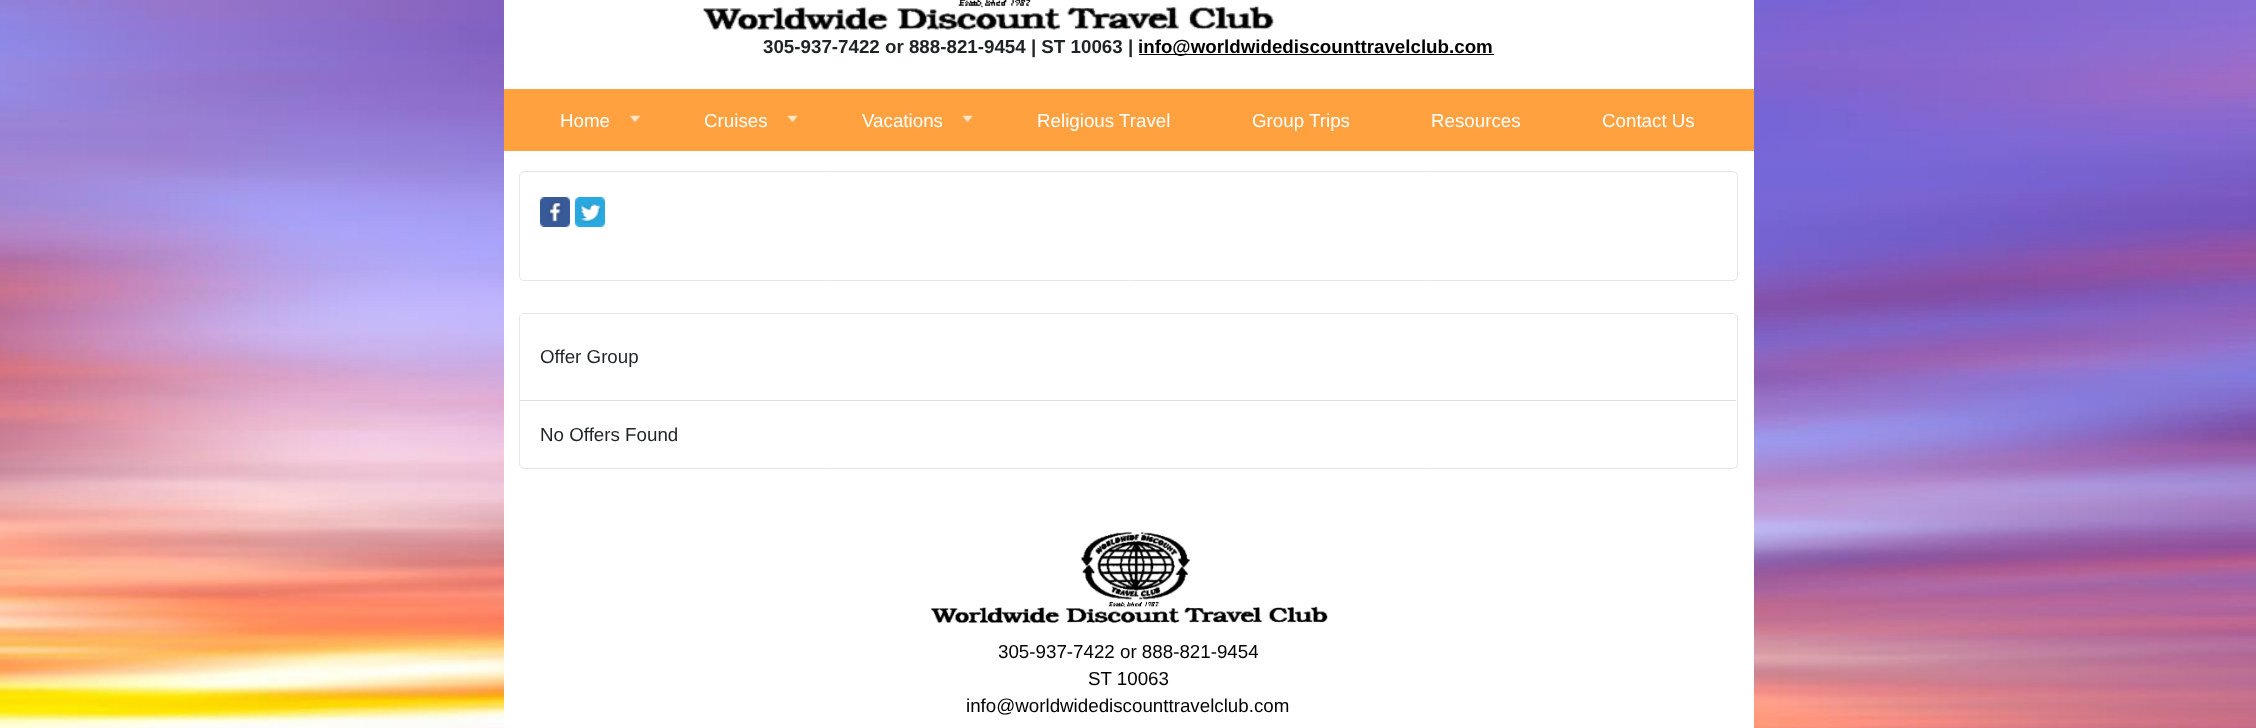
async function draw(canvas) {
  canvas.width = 2256;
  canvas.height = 728;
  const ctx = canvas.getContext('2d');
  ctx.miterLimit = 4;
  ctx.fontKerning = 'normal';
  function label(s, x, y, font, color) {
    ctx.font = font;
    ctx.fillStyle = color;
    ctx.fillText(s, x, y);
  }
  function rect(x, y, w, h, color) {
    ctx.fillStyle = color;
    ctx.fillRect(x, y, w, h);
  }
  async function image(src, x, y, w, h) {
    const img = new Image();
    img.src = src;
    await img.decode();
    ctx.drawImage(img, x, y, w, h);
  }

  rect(0, 0, 2256, 728, '#fff');
  await image('assets/img1.png', 0, 0, 2256, 728);
  rect(504, 0, 1250, 89, '#fff');
  await image('assets/img2.png', 702, 0, 572, 30);
  label('305-937-7422 or 888-821-9454 | ST 10063 |', 763, 53, 'bold 18.75px Liberation Sans', '#1f2426');
  rect(1139, 54, 355, 1, '#000');
  label('info@worldwidediscounttravelclub.com', 1138, 53, 'bold 18.75px Liberation Sans', '#000');
  rect(504, 89, 1250, 62, '#ffa13f');
  await image('assets/img3.png', 629, 115, 12, 8);
  label('Home', 560, 127, '18.75px Liberation Sans', '#fff');
  await image('assets/img4.png', 787, 115, 11, 8);
  label('Cruises', 704, 127, '18.75px Liberation Sans', '#fff');
  await image('assets/img5.png', 962, 115, 11, 8);
  label('Vacations', 862, 127, '18.75px Liberation Sans', '#fff');
  label('Religious Travel', 1037, 127, '18.75px Liberation Sans', '#fff');
  label('Group Trips', 1252, 127, '18.75px Liberation Sans', '#fff');
  label('Resources', 1431, 127, '18.75px Liberation Sans', '#fff');
  label('Contact Us', 1602, 127, '18.75px Liberation Sans', '#fff');
  rect(504, 151, 1250, 577, '#fff');
  ctx.beginPath();
  ctx.roundRect(519.5, 171.5, 1218, 109, 4.5);
  ctx.strokeStyle = '#e4e6ef';
  ctx.stroke();
  await image('assets/img6.png', 540, 197, 30, 30);
  await image('assets/img7.png', 575, 197, 30, 30);
  ctx.beginPath();
  ctx.roundRect(519.5, 313.5, 1218, 155, 4.5);
  ctx.stroke();
  ctx.beginPath();
  ctx.roundRect(520, 314, 1216, 87, [4, 4, 0, 0]);
  ctx.fill();
  rect(520, 400, 1216, 1, '#dfdfdf');
  label('Offer Group', 540, 363, '18.75px Liberation Sans', '#1f2426');
  label('No Offers Found', 540, 441, '18.75px Liberation Sans', '#1f2426');
  await image('assets/img8.png', 930, 531, 398, 92);
  label('305-937-7422 or 888-821-9454', 998, 658, '18.75px Liberation Sans', '#000');
  label('ST 10063', 1088, 685, '18.75px Liberation Sans', '#000');
  label('info@worldwidediscounttravelclub.com', 966, 712, '18.75px Liberation Sans', '#000');
}

draw(document.querySelector('canvas'));
